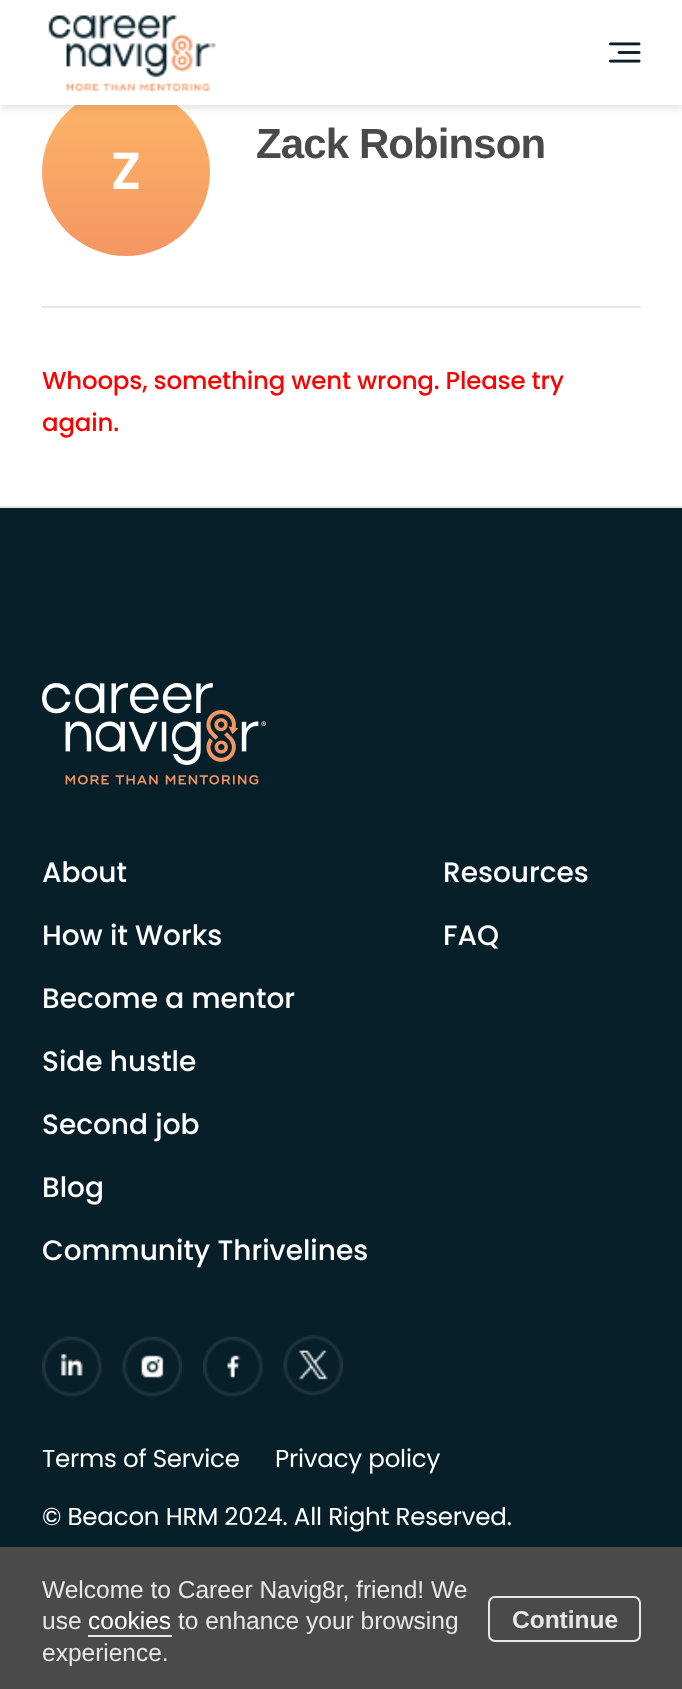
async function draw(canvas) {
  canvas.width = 682;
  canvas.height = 1689;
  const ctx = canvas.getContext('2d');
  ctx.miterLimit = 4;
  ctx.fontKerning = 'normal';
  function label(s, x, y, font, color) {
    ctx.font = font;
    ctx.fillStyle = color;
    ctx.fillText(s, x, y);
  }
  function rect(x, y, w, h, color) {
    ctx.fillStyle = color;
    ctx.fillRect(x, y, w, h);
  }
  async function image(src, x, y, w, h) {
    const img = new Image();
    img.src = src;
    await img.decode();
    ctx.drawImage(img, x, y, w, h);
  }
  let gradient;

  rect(0, 0, 682, 1689, '#fff');
  gradient = ctx.createLinearGradient(126, 87, 126, 256);
  gradient.addColorStop(0, '#ffb668');
  gradient.addColorStop(1, '#f39663');
  ctx.fillStyle = gradient;
  ctx.beginPath();
  ctx.arc(126, 172, 84, 0, 2 * Math.PI);
  ctx.fill();
  ctx.fillStyle = '#0000001a';
  ctx.filter = 'blur(3.5px)';
  ctx.beginPath();
  ctx.rect(0, 4, 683, 105);
  ctx.fill();
  ctx.filter = 'none';
  rect(0, 0, 682, 105, '#fff');
  await image('assets/img1.png', 48, 15, 168, 77);
  await image('assets/img2.png', 609, 42, 32, 21);
  rect(42, 306, 599, 2, '#e7e7e7');
  ctx.letterSpacing = '-0.9px';
  label('Zack Robinson', 256, 158, 'bold 42px Liberation Sans', '#4a4a4a');
  ctx.letterSpacing = '-0.2px';
  label('Z', 111, 189, '600 52px Poppins', '#fff');
  label('Whoops, something went wrong. Please try', 42, 389, '500 24.5px Poppins', '#f00');
  label('again.', 42, 431, '500 24.5px Poppins', '#f00');
  rect(0, 508, 682, 1039, '#061f29');
  rect(0, 506, 682, 2, '#e7e7e7');
  await image('assets/img3.png', 42, 683, 224, 102);
  ctx.letterSpacing = '0px';
  label('About', 42, 882, '500 28px Poppins', '#fff');
  label('How it Works', 42, 945, '500 28px Poppins', '#fff');
  label('Become a mentor', 42, 1008, '500 28px Poppins', '#fff');
  label('Side hustle', 42, 1071, '500 28px Poppins', '#fff');
  label('Second job', 42, 1134, '500 28px Poppins', '#fff');
  label('Resources', 443, 882, '500 28px Poppins', '#fff');
  label('FAQ', 443, 945, '500 28px Poppins', '#fff');
  label('Blog', 42, 1197, '500 28px Poppins', '#fff');
  label('Community Thrivelines', 42, 1260, '500 28px Poppins', '#fff');
  await image('assets/img4.png', 42, 1336, 60, 61);
  await image('assets/img5.png', 122, 1336, 60, 61);
  await image('assets/img6.png', 203, 1336, 60, 61);
  await image('assets/img7.png', 283, 1335, 60, 61);
  ctx.letterSpacing = '-0.2px';
  label('Terms of Service', 42, 1467, '24.5px Poppins', '#fff');
  label('Privacy policy', 275, 1467, '24.5px Poppins', '#fff');
  label('© Beacon HRM 2024. All Right Reserved.', 42, 1525, '24.5px Poppins', '#fff');
  rect(0, 1547, 682, 142, '#4a4a4a');
  ctx.letterSpacing = '0px';
  label('Welcome to Career Navig8r, friend! We', 42, 1598, '24.5px Liberation Sans', '#e7e7e7');
  label('use', 42, 1629, '24.5px Liberation Sans', '#e7e7e7');
  label('cookies', 88, 1629, '24.5px Liberation Sans', '#fff');
  rect(88, 1635, 84, 2, '#e7e7e7');
  label('to enhance your browsing', 178, 1629, '24.5px Liberation Sans', '#e7e7e7');
  label('experience.', 42, 1661, '24.5px Liberation Sans', '#e7e7e7');
  ctx.beginPath();
  ctx.roundRect(489, 1597, 151, 44, 6);
  ctx.strokeStyle = '#e7e7e7';
  ctx.lineWidth = 2;
  ctx.stroke();
  label('Continue', 512, 1628, 'bold 24.5px Liberation Sans', '#e7e7e7');
}

draw(document.querySelector('canvas'));
